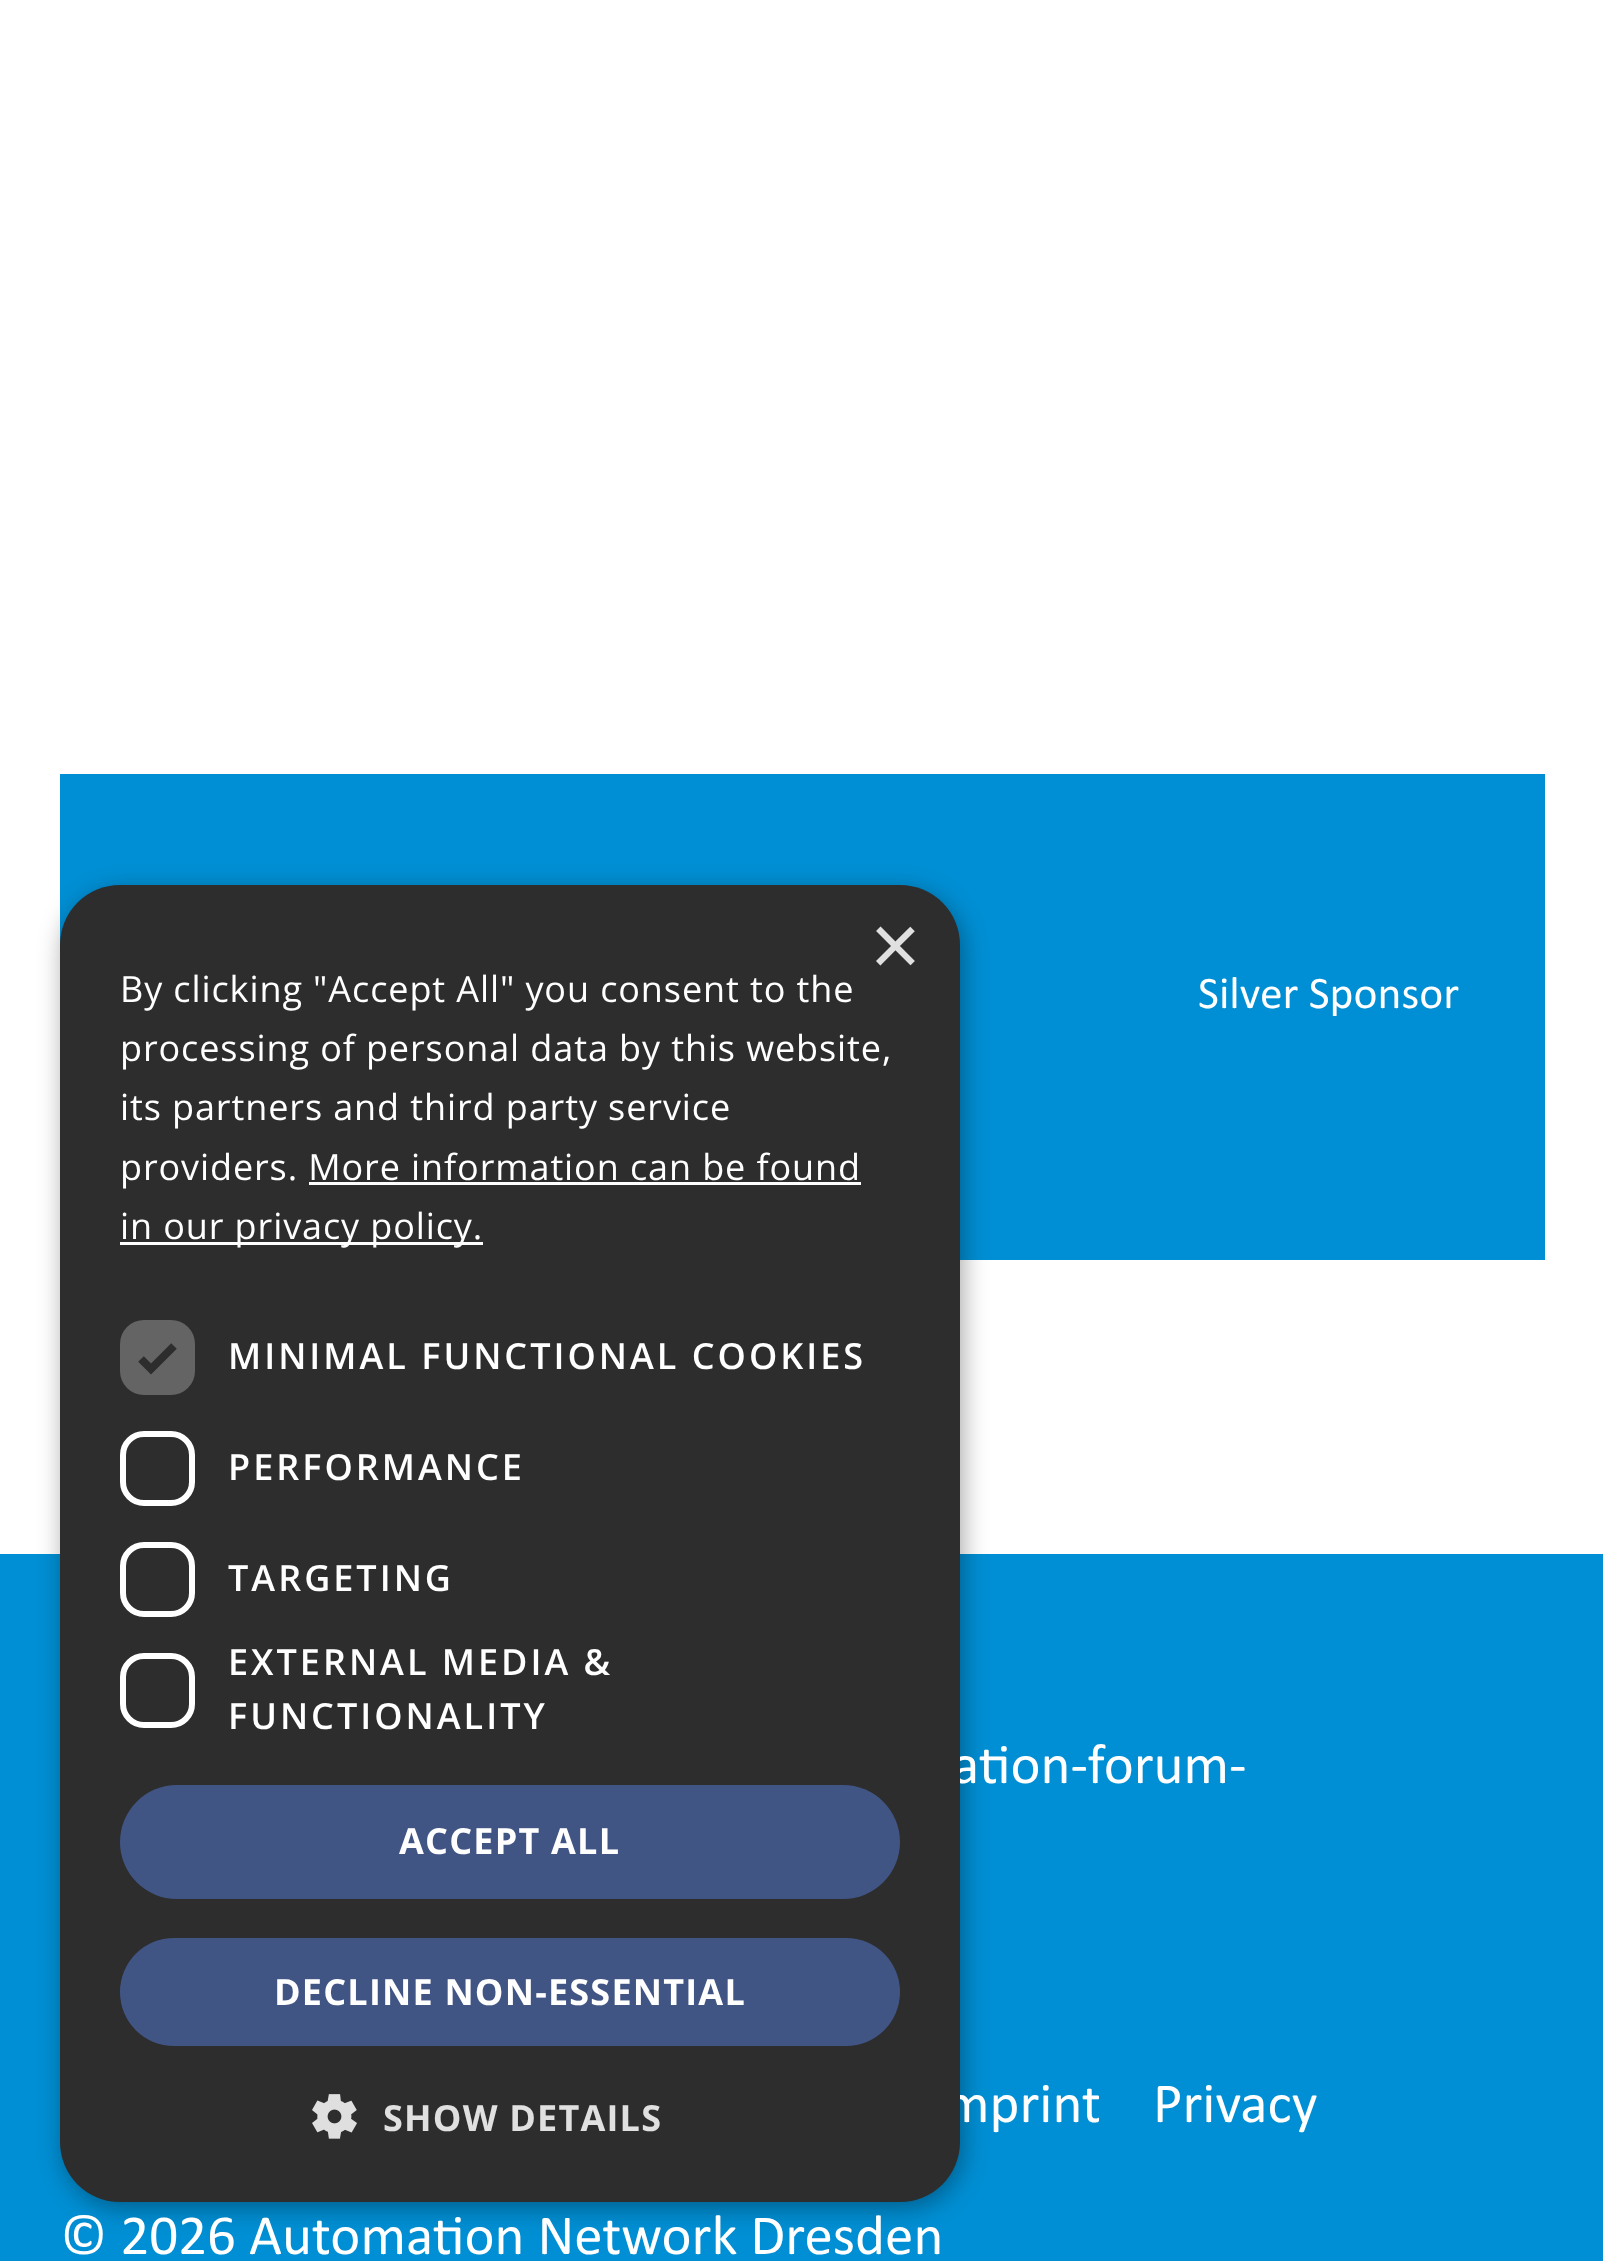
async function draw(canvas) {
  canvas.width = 1603;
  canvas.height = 2261;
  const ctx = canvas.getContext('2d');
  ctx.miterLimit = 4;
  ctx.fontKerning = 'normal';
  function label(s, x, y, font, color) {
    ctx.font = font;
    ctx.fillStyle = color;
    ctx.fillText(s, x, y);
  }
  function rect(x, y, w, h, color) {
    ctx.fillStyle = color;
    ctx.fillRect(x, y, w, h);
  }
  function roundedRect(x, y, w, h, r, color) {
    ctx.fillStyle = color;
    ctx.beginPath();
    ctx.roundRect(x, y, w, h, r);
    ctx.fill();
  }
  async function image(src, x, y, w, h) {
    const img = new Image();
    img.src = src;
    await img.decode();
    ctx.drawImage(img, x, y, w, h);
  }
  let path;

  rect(0, 0, 1603, 2261, '#fff');
  rect(60, 774, 1485, 486, '#008fd4');
  rect(0, 1554, 1603, 707, '#008fd4');
  ctx.fillStyle = '#00000059';
  ctx.filter = 'blur(12px)';
  ctx.beginPath();
  ctx.roundRect(63, 891, 900, 1317, 60);
  ctx.fill();
  ctx.filter = 'none';
  label('ation-forum-', 952, 1783, '57px Calibri', '#fff');
  label('mprint', 944, 2122, '57px Calibri', '#fff');
  roundedRect(60, 885, 900, 1317, 60, '#2d2d2d');
  label('×', 870, 975, '87px Liberation Sans', '#e0e0e0');
  ctx.letterSpacing = '0.9px';
  label('By clicking "Accept All" you consent to the', 120, 1002, '36px Open Sans', '#fff');
  label('processing of personal data by this website,', 120, 1061, '36px Open Sans', '#fff');
  label('its partners and third party service', 120, 1120, '36px Open Sans', '#fff');
  label('providers. More information can be found', 120, 1180, '36px Open Sans', '#fff');
  rect(120, 1242, 363, 3, '#fff');
  label('in our privacy policy.', 120, 1239, '36px Open Sans', '#fff');
  rect(309, 1182, 552, 3, '#fff');
  roundedRect(120, 1320, 75, 75, 24, '#646464');
  path = new Path2D('M141 1359L151 1369L174 1346');
  ctx.strokeStyle = '#2d2d2d';
  ctx.lineWidth = 7.9;
  ctx.stroke(path);
  ctx.letterSpacing = '3px';
  label('MINIMAL FUNCTIONAL COOKIES', 228, 1369, '600 36px Open Sans', '#fff');
  ctx.beginPath();
  ctx.roundRect(123, 1434, 69, 69, 21);
  ctx.strokeStyle = '#fff';
  ctx.lineWidth = 6;
  ctx.stroke();
  label('PERFORMANCE', 228, 1480, '600 36px Open Sans', '#fff');
  ctx.beginPath();
  ctx.roundRect(123, 1545, 69, 69, 21);
  ctx.stroke();
  label('TARGETING', 228, 1591, '600 36px Open Sans', '#fff');
  ctx.beginPath();
  ctx.roundRect(123, 1656, 69, 69, 21);
  ctx.stroke();
  label('EXTERNAL MEDIA &', 228, 1675, '600 36px Open Sans', '#fff');
  label('FUNCTIONALITY', 228, 1729, '600 36px Open Sans', '#fff');
  roundedRect(120, 1785, 780, 114, 57, '#415585');
  ctx.letterSpacing = '1.2px';
  label('ACCEPT ALL', 399, 1854, 'bold 36px Open Sans', '#fff');
  roundedRect(120, 1938, 780, 108, 54, '#415585');
  label('DECLINE NON-ESSENTIAL', 274, 2005, 'bold 36px Open Sans', '#fff');
  await image('assets/img1.png', 312, 2094, 45, 45);
  label('SHOW DETAILS', 383, 2131, 'bold 36px Open Sans', '#e0e0e0');
  ctx.letterSpacing = '0px';
  label('Silver Sponsor', 1198, 1008, '45.5px Calibri', '#fff');
  label('Privacy', 1153, 2122, '57px Calibri', '#fff');
  label('© 2026 Automation Network Dresden', 60, 2254, '57px Calibri', '#fff');
}

draw(document.querySelector('canvas'));
